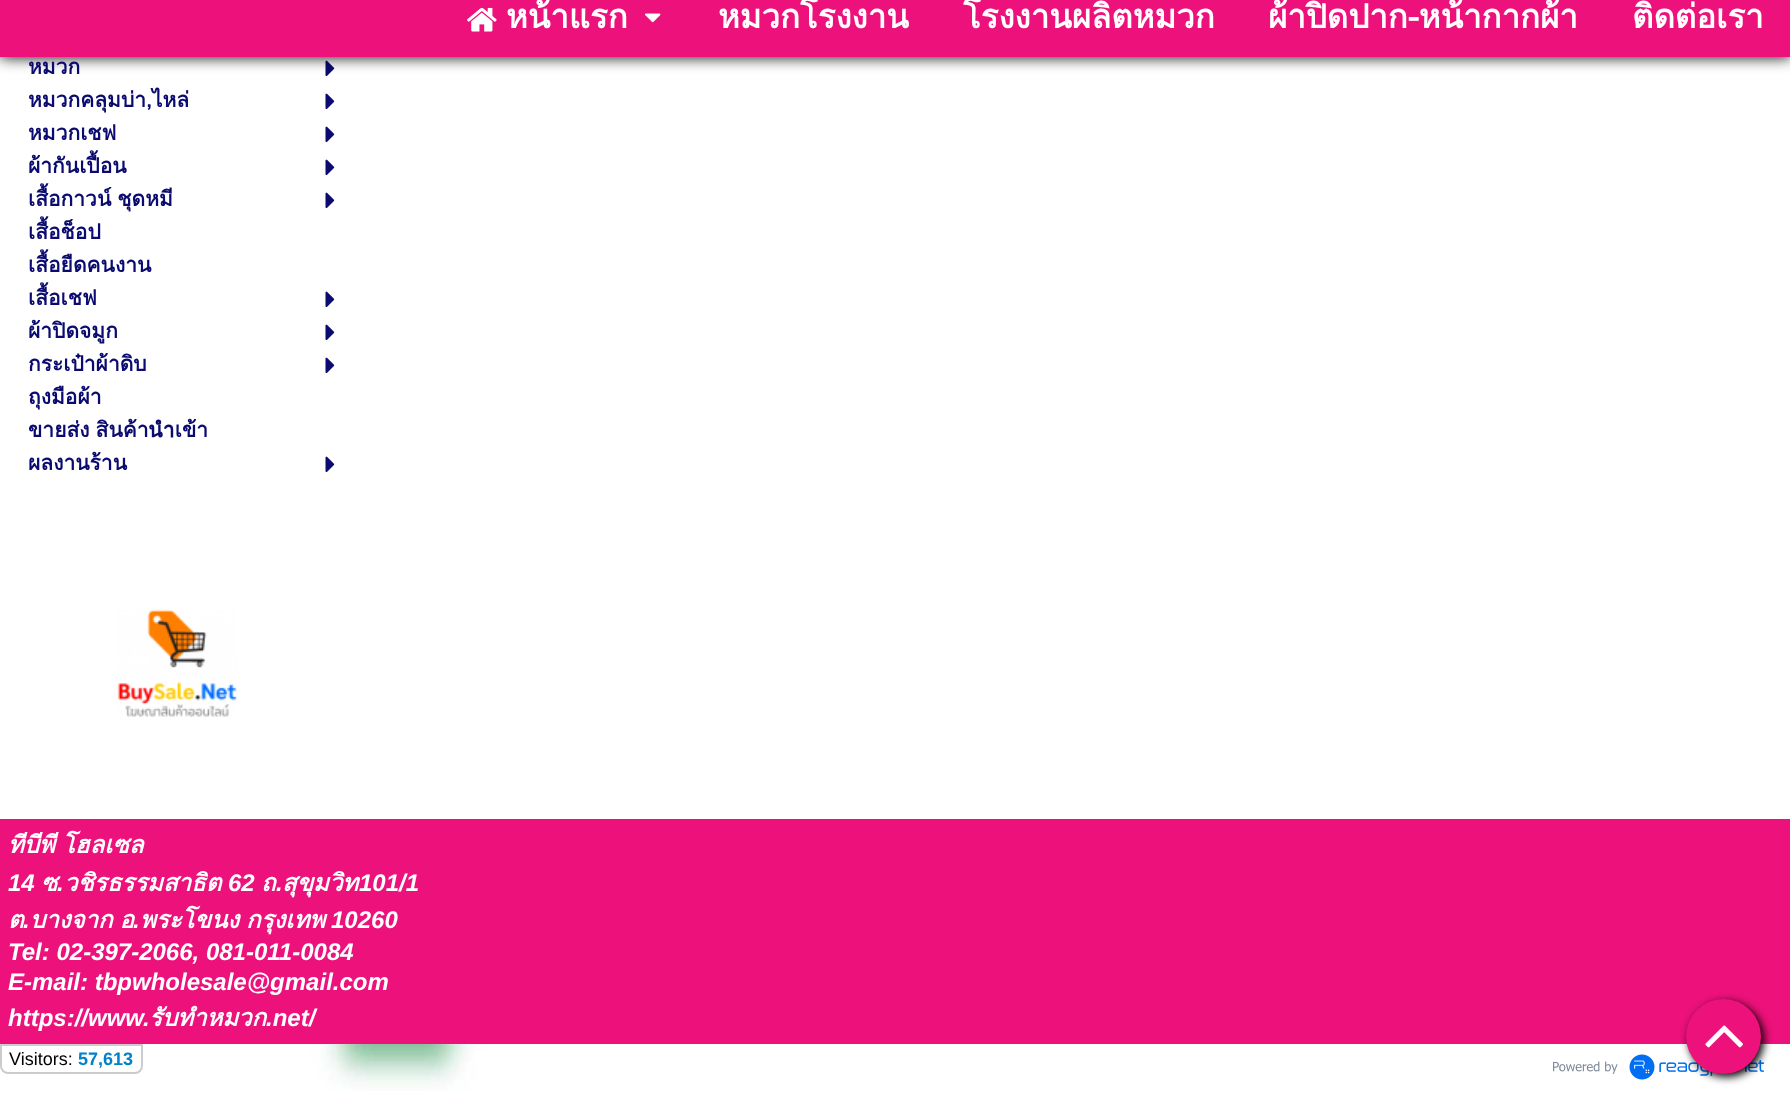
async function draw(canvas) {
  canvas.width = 1790;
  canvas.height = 1104;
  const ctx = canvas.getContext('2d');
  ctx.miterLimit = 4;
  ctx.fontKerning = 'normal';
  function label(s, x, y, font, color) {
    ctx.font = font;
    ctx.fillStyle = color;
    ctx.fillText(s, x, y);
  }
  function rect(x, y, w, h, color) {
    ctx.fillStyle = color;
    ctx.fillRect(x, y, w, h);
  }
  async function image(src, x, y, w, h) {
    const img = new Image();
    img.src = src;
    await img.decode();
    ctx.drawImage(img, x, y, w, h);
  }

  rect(0, 0, 1790, 1104, '#fff');
  await image('assets/img1.png', 39, 1044, 1720, 47);
  await image('assets/img4.png', 325, 60, 10, 17);
  ctx.fillStyle = '#000';
  ctx.filter = 'blur(7.5px)';
  ctx.beginPath();
  ctx.rect(0, -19, 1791, 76);
  ctx.fill();
  ctx.filter = 'none';
  rect(0, 0, 1790, 57, '#ec117b');
  await image('assets/img2.png', 467, 7, 30, 25);
  label('หน้าแรก', 506, 28, 'bold 33px Loma', '#fff');
  await image('assets/img3.png', 645, 13, 16, 10);
  label('หมวกโรงงาน', 718, 28, 'bold 33px Loma', '#fff');
  label('โรงงานผลิตหมวก', 963, 28, 'bold 33px Loma', '#fff');
  label('ผ้าปิดปาก-หน้ากากผ้า', 1268, 28, 'bold 33px Loma', '#fff');
  label('ติดต่อเรา', 1632, 28, 'bold 33px Loma', '#fff');
  label('หมวก', 28, 74, 'bold 21px Loma', '#0a0a70');
  label('หมวกคลุมบ่า,ไหล่', 28, 107, 'bold 21px Loma', '#0a0a70');
  await image('assets/img4.png', 325, 93, 10, 17);
  label('หมวกเชฟ', 28, 140, 'bold 21px Loma', '#0a0a70');
  await image('assets/img4.png', 325, 126, 10, 17);
  label('ผ้ากันเปื้อน', 28, 173, 'bold 21px Loma', '#0a0a70');
  await image('assets/img4.png', 325, 159, 10, 17);
  ctx.wordSpacing = '-1px';
  label('เสื้อกาวน์ ชุดหมี', 28, 206, 'bold 21px Loma', '#0a0a70');
  await image('assets/img4.png', 325, 192, 10, 17);
  ctx.wordSpacing = '0px';
  label('เสื้อช็อป', 28, 239, 'bold 21px Loma', '#0a0a70');
  label('เสื้อยืดคนงาน', 28, 272, 'bold 21px Loma', '#0a0a70');
  label('เสื้อเชฟ', 28, 305, 'bold 21px Loma', '#0a0a70');
  await image('assets/img4.png', 325, 291, 10, 17);
  label('ผ้าปิดจมูก', 28, 338, 'bold 21px Loma', '#0a0a70');
  await image('assets/img4.png', 325, 324, 10, 17);
  label('กระเป๋าผ้าดิบ', 28, 371, 'bold 21px Loma', '#0a0a70');
  await image('assets/img4.png', 325, 357, 10, 17);
  label('ถุงมือผ้า', 28, 404, 'bold 21px Loma', '#0a0a70');
  ctx.wordSpacing = '-1px';
  label('ขายส่ง สินค้านำเข้า', 28, 437, 'bold 21px Loma', '#0a0a70');
  ctx.wordSpacing = '0px';
  label('ผลงานร้าน', 28, 470, 'bold 21px Loma', '#0a0a70');
  await image('assets/img4.png', 325, 456, 10, 17);
  await image('assets/img5.png', 117, 609, 120, 108);
  rect(0, 819, 1790, 225, '#ec117b');
  ctx.wordSpacing = '-1px';
  label('ทีบีพี โฮลเซล', 8, 853, 'italic bold 24px Loma', '#fff');
  ctx.wordSpacing = '0px';
  label('14', 8, 891, 'italic bold 24px Liberation Sans', '#fff');
  label('ซ', 41, 891, 'italic bold 24px Loma', '#fff');
  label('วชิรธรรมสาธิต', 64, 891, 'italic bold 24px Loma', '#fff');
  label('62', 228, 891, 'italic bold 24px Liberation Sans', '#fff');
  label('ถ', 261, 891, 'italic bold 24px Loma', '#fff');
  label('.', 276, 891, 'italic bold 24px Liberation Sans', '#fff');
  label('สุขุมวิท', 282, 891, 'italic bold 24px Loma', '#fff');
  label('101/1', 359, 891, 'italic bold 24px Liberation Sans', '#fff');
  label('.', 57, 891, 'italic bold 24px Liberation Sans', '#fff');
  label('ต', 8, 928, 'italic bold 24px Loma', '#fff');
  label('.', 23, 928, 'italic bold 24px Liberation Sans', '#fff');
  ctx.wordSpacing = '-1px';
  label('บางจาก อ', 30, 928, 'italic bold 24px Loma', '#fff');
  ctx.wordSpacing = '0px';
  label('.', 133, 928, 'italic bold 24px Liberation Sans', '#fff');
  ctx.wordSpacing = '-1px';
  label('พระโขนง กรุงเทพ', 140, 928, 'italic bold 24px Loma', '#fff');
  ctx.wordSpacing = '0px';
  label('10260', 331, 928, 'italic bold 24px Liberation Sans', '#fff');
  label('Tel: 02-397-2066, 081-011-0084', 8, 960, 'italic bold 24px Liberation Sans', '#fff');
  label('E-mail: tbpwholesale@gmail.com', 8, 990, 'italic bold 24px Liberation Sans', '#fff');
  label('https://www.', 8, 1026, 'italic bold 24px Liberation Sans', '#fff');
  label('รับทําหมวก', 149, 1026, 'italic bold 24px Loma', '#fff');
  label('.net/', 266, 1026, 'italic bold 24px Liberation Sans', '#fff');
  ctx.beginPath();
  ctx.roundRect(1, 1045, 141, 28, [0, 0, 7, 7]);
  ctx.strokeStyle = '#ccc';
  ctx.lineWidth = 2;
  ctx.stroke();
  label('Visitors:', 9, 1065, '18px Liberation Sans', '#000');
  label('57,613', 78, 1065, 'bold 18px Liberation Sans', '#0081c8');
  await image('assets/img6.png', 1553, 1054, 211, 26);
  ctx.fillStyle = '#000';
  ctx.filter = 'blur(4px)';
  ctx.beginPath();
  ctx.roundRect(1689, 1002, 75, 75, 37.5);
  ctx.fill();
  ctx.filter = 'none';
  ctx.fillStyle = '#ec117b';
  ctx.beginPath();
  ctx.arc(1723.5, 1036.5, 37.5, 0, 2 * Math.PI);
  ctx.fill();
  await image('assets/img7.png', 1705, 1025, 38, 23);
}

draw(document.querySelector('canvas'));
